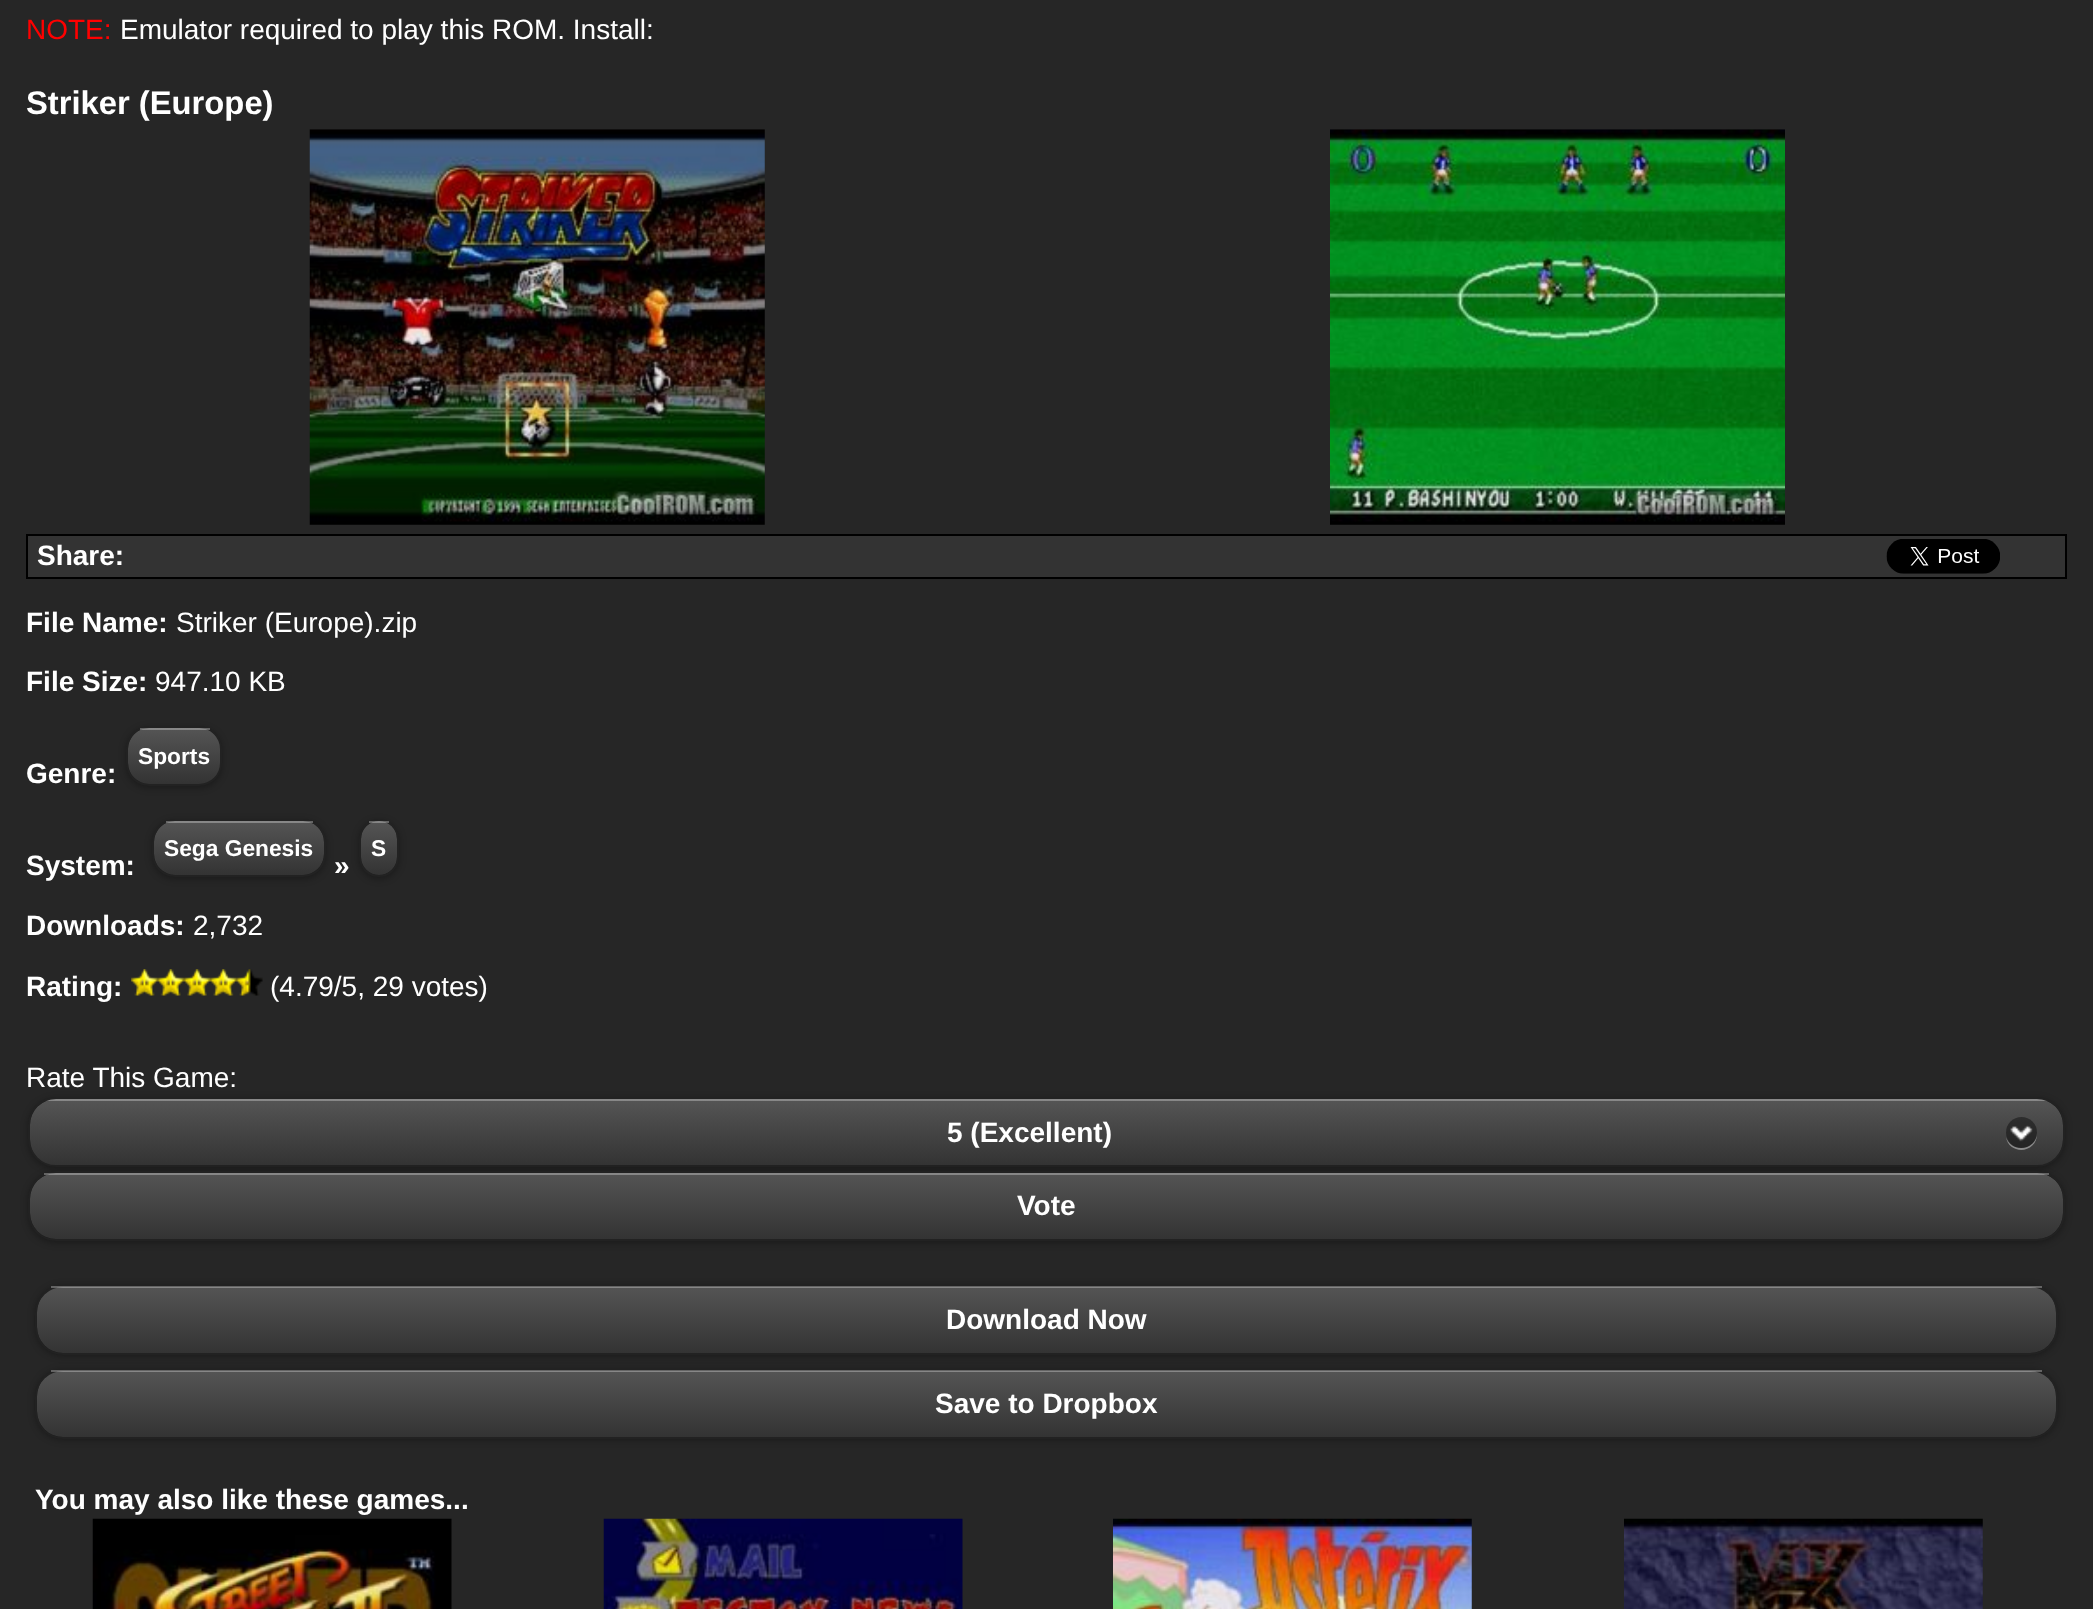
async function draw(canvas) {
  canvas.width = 2093;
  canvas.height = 1609;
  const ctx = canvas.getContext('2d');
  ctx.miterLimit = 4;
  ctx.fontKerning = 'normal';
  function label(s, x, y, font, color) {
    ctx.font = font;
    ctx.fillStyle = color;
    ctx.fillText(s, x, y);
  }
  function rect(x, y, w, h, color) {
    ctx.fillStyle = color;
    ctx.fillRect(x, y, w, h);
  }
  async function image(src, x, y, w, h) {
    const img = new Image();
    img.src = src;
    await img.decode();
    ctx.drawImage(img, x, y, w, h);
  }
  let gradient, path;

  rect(0, 0, 2093, 1609, '#262626');
  label('NOTE:', 26, 39, '28px Liberation Sans', '#f00');
  label('Emulator required to play this ROM. Install:', 120, 39, '28px Liberation Sans', '#fff');
  label('Striker (Europe)', 26, 114, 'bold 32.75px Liberation Sans', '#fff');
  await image('assets/img1.png', 309, 129, 456, 396);
  await image('assets/img2.png', 1330, 129, 455, 396);
  ctx.fillStyle = '#333';
  ctx.beginPath();
  ctx.rect(27, 535, 2039, 43);
  ctx.fill();
  ctx.strokeStyle = '#000';
  ctx.lineWidth = 2;
  ctx.stroke();
  label('Share:', 37, 565, 'bold 28px Liberation Sans', '#fff');
  await image('assets/img3.png', 1886, 539, 114, 35);
  label('File Name:', 26, 632, 'bold 28px Liberation Sans', '#fff');
  label('Striker (Europe).zip', 176, 632, '28px Liberation Sans', '#fff');
  label('File Size:', 26, 691, 'bold 28px Liberation Sans', '#fff');
  label('947.10 KB', 155, 691, '28px Liberation Sans', '#fff');
  ctx.fillStyle = '#0000004d';
  ctx.filter = 'blur(3.5px)';
  ctx.beginPath();
  ctx.roundRect(126, 728, 96, 60, 23);
  ctx.fill();
  ctx.filter = 'none';
  gradient = ctx.createLinearGradient(174, 728, 174, 784);
  gradient.addColorStop(0, '#555');
  gradient.addColorStop(1, '#333');
  ctx.fillStyle = gradient;
  ctx.beginPath();
  ctx.roundRect(128, 728, 93, 56, 21);
  ctx.fill();
  ctx.beginPath();
  ctx.roundRect(127, 727, 94, 58, 22);
  ctx.strokeStyle = '#222';
  ctx.stroke();
  rect(140, 728, 70, 2, '#ffffff4d');
  label('Sports', 138, 764, 'bold 22.75px Liberation Sans', '#fff');
  label('Genre:', 26, 783, 'bold 28px Liberation Sans', '#fff');
  ctx.fillStyle = '#0000004d';
  ctx.filter = 'blur(3.5px)';
  ctx.beginPath();
  ctx.roundRect(152, 821, 174, 58, 23);
  ctx.fill();
  ctx.filter = 'none';
  gradient = ctx.createLinearGradient(239, 821, 239, 875);
  gradient.addColorStop(0, '#555');
  gradient.addColorStop(1, '#333');
  ctx.fillStyle = gradient;
  ctx.beginPath();
  ctx.roundRect(154, 821, 170, 54, 21);
  ctx.fill();
  ctx.beginPath();
  ctx.roundRect(153, 820, 172, 56, 22);
  ctx.stroke();
  rect(166, 821, 147, 2, '#ffffff4d');
  label('Sega Genesis', 164, 856, 'bold 22.75px Liberation Sans', '#fff');
  ctx.fillStyle = '#0000004d';
  ctx.filter = 'blur(3.5px)';
  ctx.beginPath();
  ctx.roundRect(359, 821, 40, 58, 20);
  ctx.fill();
  ctx.filter = 'none';
  gradient = ctx.createLinearGradient(379, 821, 379, 875);
  gradient.addColorStop(0, '#555');
  gradient.addColorStop(1, '#333');
  ctx.fillStyle = gradient;
  ctx.beginPath();
  ctx.roundRect(361, 821, 36, 54, 18);
  ctx.fill();
  ctx.beginPath();
  ctx.roundRect(360, 820, 38, 56, 19);
  ctx.stroke();
  rect(369, 821, 20, 2, '#ffffff4d');
  label('S', 371, 856, 'bold 22.75px Liberation Sans', '#fff');
  label('System:', 26, 875, 'bold 28px Liberation Sans', '#fff');
  label('»', 334, 875, 'bold 28px Liberation Sans', '#fff');
  label('Downloads:', 26, 935, 'bold 28px Liberation Sans', '#fff');
  label('2,732', 193, 935, '28px Liberation Sans', '#fff');
  label('Rating:', 26, 996, 'bold 28px Liberation Sans', '#fff');
  await image('assets/img4.png', 131, 969, 27, 27);
  await image('assets/img5.png', 157, 969, 27, 27);
  await image('assets/img6.png', 183, 969, 27, 27);
  await image('assets/img7.png', 210, 969, 27, 27);
  await image('assets/img8.png', 236, 969, 27, 27);
  label('(4.79/5, 29 votes)', 270, 996, '28px Liberation Sans', '#fff');
  label('Rate This Game:', 26, 1087, '28px Liberation Sans', '#fff');
  ctx.fillStyle = '#0000004d';
  ctx.filter = 'blur(3.5px)';
  ctx.beginPath();
  ctx.roundRect(28, 1099, 2037, 70, 28);
  ctx.fill();
  ctx.filter = 'none';
  gradient = ctx.createLinearGradient(1047, 1099, 1047, 1166);
  gradient.addColorStop(0, '#555');
  gradient.addColorStop(1, '#333');
  ctx.fillStyle = gradient;
  ctx.beginPath();
  ctx.roundRect(30, 1099, 2033, 67, 26);
  ctx.fill();
  ctx.beginPath();
  ctx.roundRect(29, 1098, 2035, 68, 27);
  ctx.stroke();
  ctx.save();
  ctx.beginPath();
  ctx.roundRect(30, 1099, 2033, 67, 26);
  ctx.clip();
  rect(44, 1099, 2005, 2, '#ffffff4d');
  ctx.restore();
  label('5 (Excellent)', 947, 1142, 'bold 28px Liberation Sans', '#fff');
  ctx.fillStyle = '#ffffff66';
  path = new Path2D('M2006 1137C2009 1156 2038 1153.5 2037 1133C2036.5 1150.5 2011 1153.5 2006 1137Z');
  ctx.fill(path);
  ctx.fillStyle = '#00000066';
  ctx.beginPath();
  ctx.arc(2021.5, 1132.5, 15.5, 0, 2 * Math.PI);
  ctx.fill();
  await image('assets/img9.png', 2010, 1125, 23, 17);
  ctx.fillStyle = '#0000004d';
  ctx.filter = 'blur(3.5px)';
  ctx.beginPath();
  ctx.roundRect(28, 1173, 2037, 70, 28);
  ctx.fill();
  ctx.filter = 'none';
  gradient = ctx.createLinearGradient(1047, 1172, 1047, 1239);
  gradient.addColorStop(0, '#555');
  gradient.addColorStop(1, '#333');
  ctx.fillStyle = gradient;
  ctx.beginPath();
  ctx.roundRect(30, 1173, 2033, 66, 26);
  ctx.fill();
  ctx.beginPath();
  ctx.roundRect(29, 1172, 2035, 68, 27);
  ctx.stroke();
  rect(44, 1173, 2005, 2, '#ffffff4d');
  label('Vote', 1017, 1215, 'bold 28px Liberation Sans', '#fff');
  ctx.fillStyle = '#0000004d';
  ctx.filter = 'blur(3.5px)';
  ctx.beginPath();
  ctx.roundRect(35, 1286, 2023, 70, 28);
  ctx.fill();
  ctx.filter = 'none';
  gradient = ctx.createLinearGradient(1047, 1286, 1047, 1353);
  gradient.addColorStop(0, '#555');
  gradient.addColorStop(1, '#333');
  ctx.fillStyle = gradient;
  ctx.beginPath();
  ctx.roundRect(37, 1286, 2019, 67, 26);
  ctx.fill();
  ctx.beginPath();
  ctx.roundRect(36, 1286, 2021, 68, 27);
  ctx.stroke();
  rect(51, 1286, 1991, 2, '#ffffff4d');
  label('Download Now', 946, 1329, 'bold 28px Liberation Sans', '#fff');
  ctx.fillStyle = '#0000004d';
  ctx.filter = 'blur(3.5px)';
  ctx.beginPath();
  ctx.roundRect(35, 1370, 2023, 70, 28);
  ctx.fill();
  ctx.filter = 'none';
  gradient = ctx.createLinearGradient(1047, 1370, 1047, 1437);
  gradient.addColorStop(0, '#555');
  gradient.addColorStop(1, '#333');
  ctx.fillStyle = gradient;
  ctx.beginPath();
  ctx.roundRect(37, 1370, 2019, 67, 26);
  ctx.fill();
  ctx.beginPath();
  ctx.roundRect(36, 1370, 2021, 68, 27);
  ctx.stroke();
  rect(51, 1370, 1991, 2, '#ffffff4d');
  label('Save to Dropbox', 935, 1413, 'bold 28px Liberation Sans', '#fff');
  label('You may also like these games...', 35, 1509, 'bold 28px Liberation Sans', '#fff');
  await image('assets/img10.png', 92, 1518, 360, 91);
  await image('assets/img11.png', 603, 1518, 360, 91);
  await image('assets/img12.png', 1113, 1518, 359, 91);
  await image('assets/img13.png', 1624, 1518, 359, 91);
}

draw(document.querySelector('canvas'));
